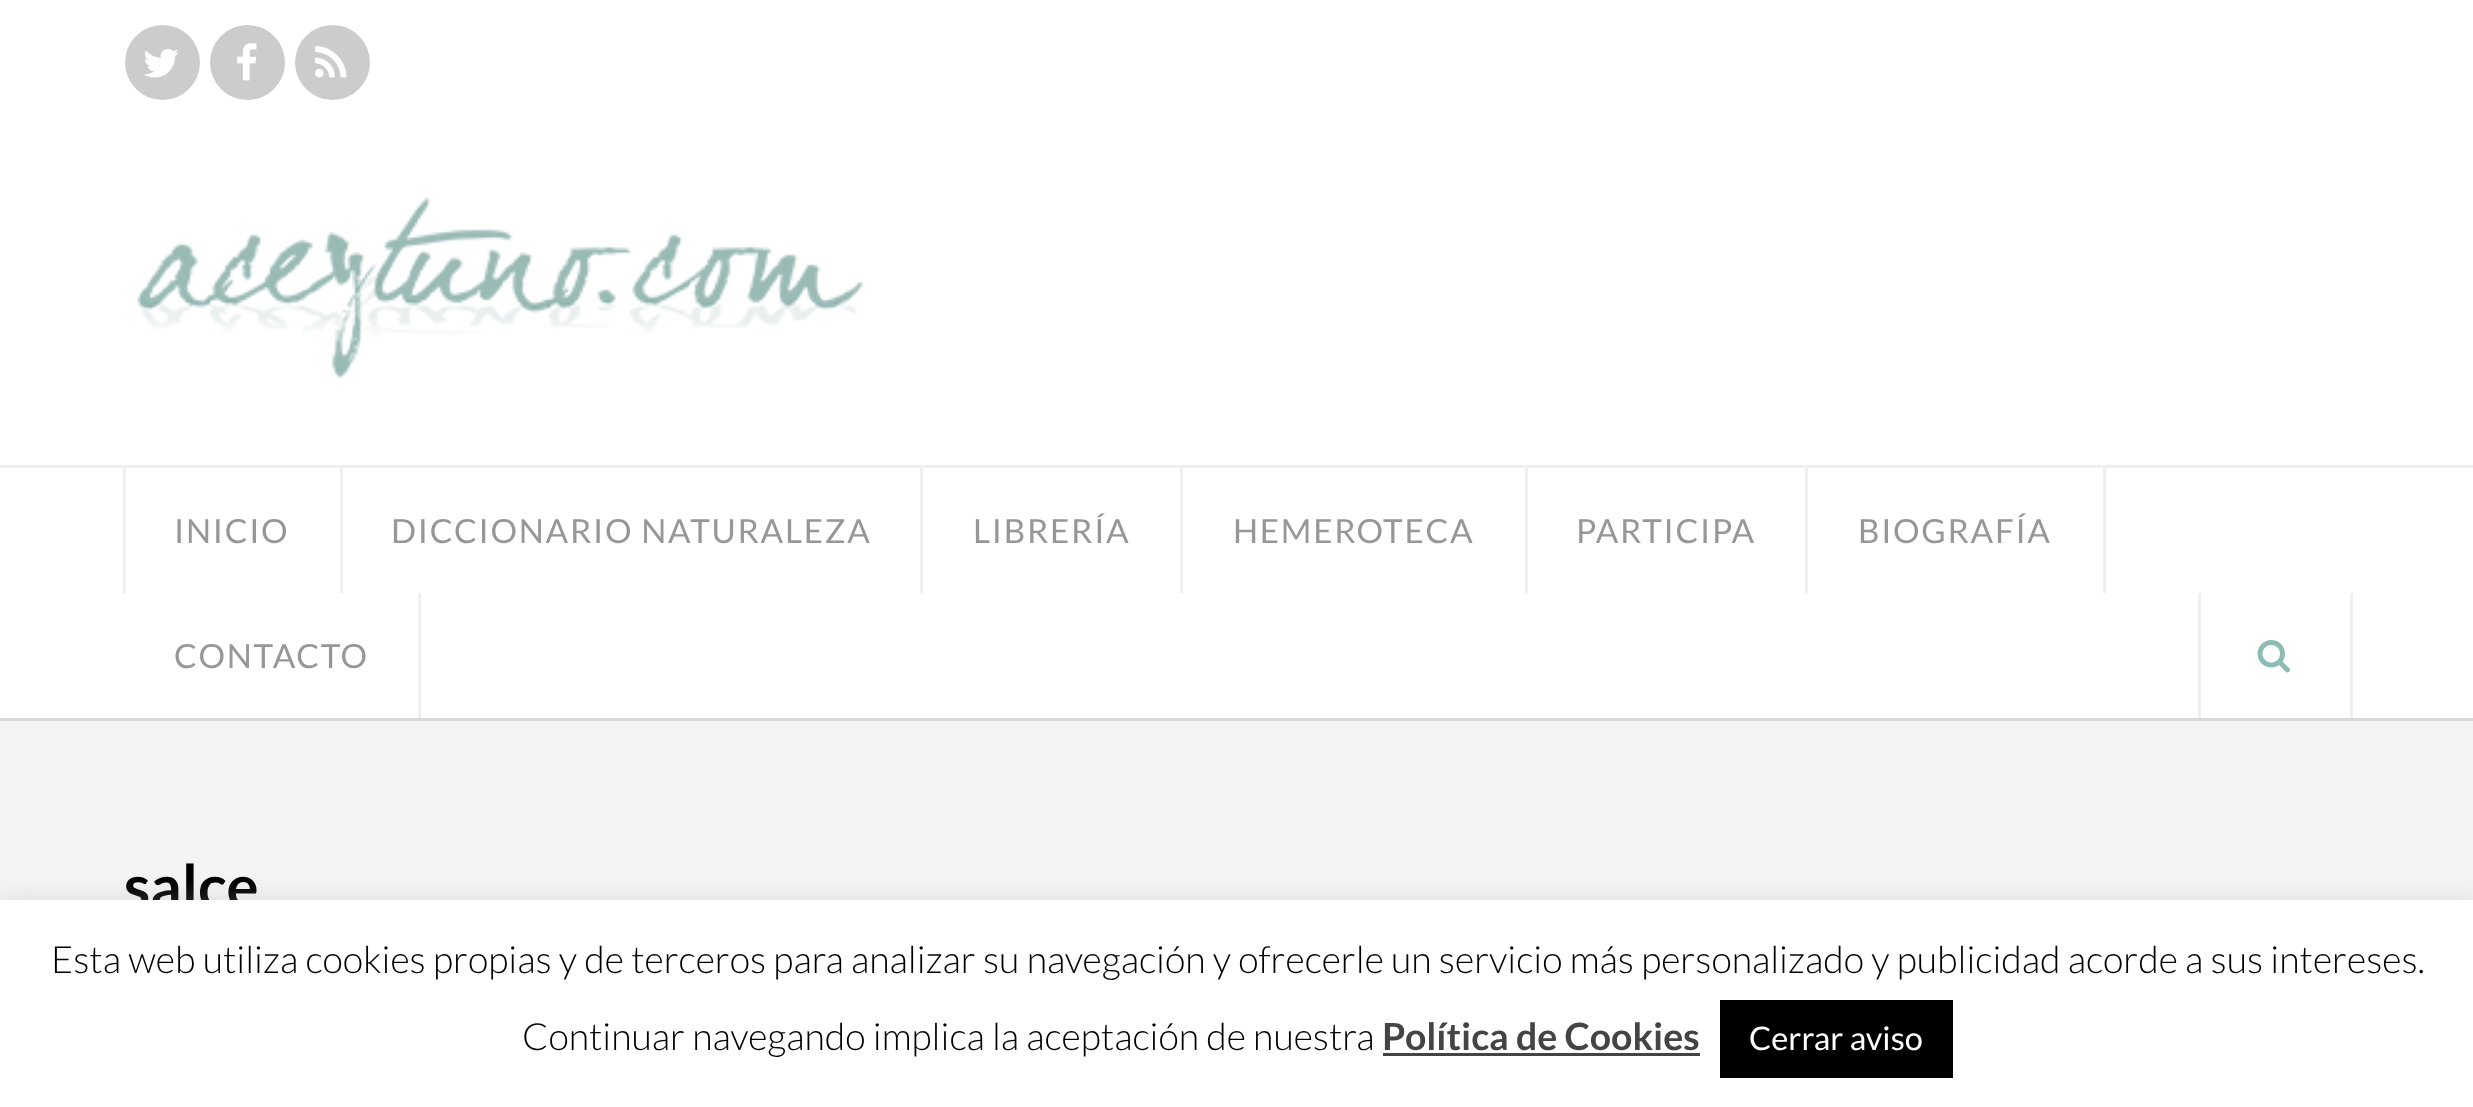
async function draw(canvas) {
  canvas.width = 2473;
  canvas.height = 1107;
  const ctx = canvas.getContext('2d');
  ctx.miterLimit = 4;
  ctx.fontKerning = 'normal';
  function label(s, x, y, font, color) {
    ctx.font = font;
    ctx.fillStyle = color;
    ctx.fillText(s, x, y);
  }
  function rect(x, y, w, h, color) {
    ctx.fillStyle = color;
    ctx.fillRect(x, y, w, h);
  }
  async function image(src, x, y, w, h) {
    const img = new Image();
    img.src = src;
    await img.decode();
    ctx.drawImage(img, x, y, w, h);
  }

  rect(0, 0, 2473, 1107, '#f4f4f4');
  rect(0, 0, 2473, 465, '#fff');
  ctx.fillStyle = '#ccc';
  ctx.beginPath();
  ctx.arc(162.5, 62.5, 37.5, 0, 2 * Math.PI);
  ctx.fill();
  await image('assets/img1.png', 144, 49, 35, 29);
  ctx.beginPath();
  ctx.arc(247.5, 62.5, 37.5, 0, 2 * Math.PI);
  ctx.fill();
  await image('assets/img2.png', 237, 43, 20, 38);
  ctx.beginPath();
  ctx.arc(332.5, 62.5, 37.5, 0, 2 * Math.PI);
  ctx.fill();
  await image('assets/img3.png', 315, 46, 32, 32);
  await image('assets/img4.png', 137, 197, 727, 182);
  rect(0, 468, 2473, 250, '#fff');
  rect(0, 465, 2473, 3, '#efefef');
  rect(0, 718, 2473, 3, '#d8d8d8');
  rect(340, 468, 3, 125, '#efefef');
  rect(123, 468, 3, 125, '#efefef');
  ctx.letterSpacing = '1.7px';
  label('INICIO', 174, 543, '33.25px Lato', '#979797');
  rect(920, 468, 3, 125, '#efefef');
  label('DICCIONARIO NATURALEZA', 391, 543, '33.25px Lato', '#979797');
  rect(1180, 468, 3, 125, '#efefef');
  label('LIBRERÍA', 973, 543, '33.25px Lato', '#979797');
  rect(1525, 468, 3, 125, '#efefef');
  label('HEMEROTECA', 1233, 543, '33.25px Lato', '#979797');
  rect(1805, 468, 3, 125, '#efefef');
  label('PARTICIPA', 1576, 543, '33.25px Lato', '#979797');
  rect(2103, 468, 3, 125, '#efefef');
  label('BIOGRAFÍA', 1858, 543, '33.25px Lato', '#979797');
  rect(418, 593, 3, 125, '#efefef');
  label('CONTACTO', 174, 668, '33.25px Lato', '#979797');
  rect(2350, 593, 3, 125, '#efefef');
  rect(2198, 593, 3, 125, '#efefef');
  await image('assets/img5.png', 2257, 640, 33, 33);
  ctx.letterSpacing = '0px';
  label('salce', 124, 908, 'bold 60px Lato', '#000');
  ctx.fillStyle = '#acabab4d';
  ctx.filter = 'blur(12.5px)';
  ctx.beginPath();
  ctx.rect(0, 898, 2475, 207);
  ctx.fill();
  ctx.filter = 'none';
  rect(0, 900, 2473, 207, '#fff');
  label('Esta web utiliza cookies propias y de terceros para analizar su navegación y ofrecerle un servicio más personalizado y publicidad acorde a sus intereses.', 51, 973, '300 37.5px Lato', '#000');
  label('Continuar navegando implica la aceptación de nuestra', 522, 1050, '300 37.5px Lato', '#000');
  label('Política de Cookies', 1382, 1050, 'bold 37.5px Lato', '#444');
  rect(1383, 1053, 317, 3, '#444');
  rect(1720, 1000, 233, 78, '#000');
  label('Cerrar aviso', 1749, 1050, '32.5px Lato', '#fff');
}

draw(document.querySelector('canvas'));
